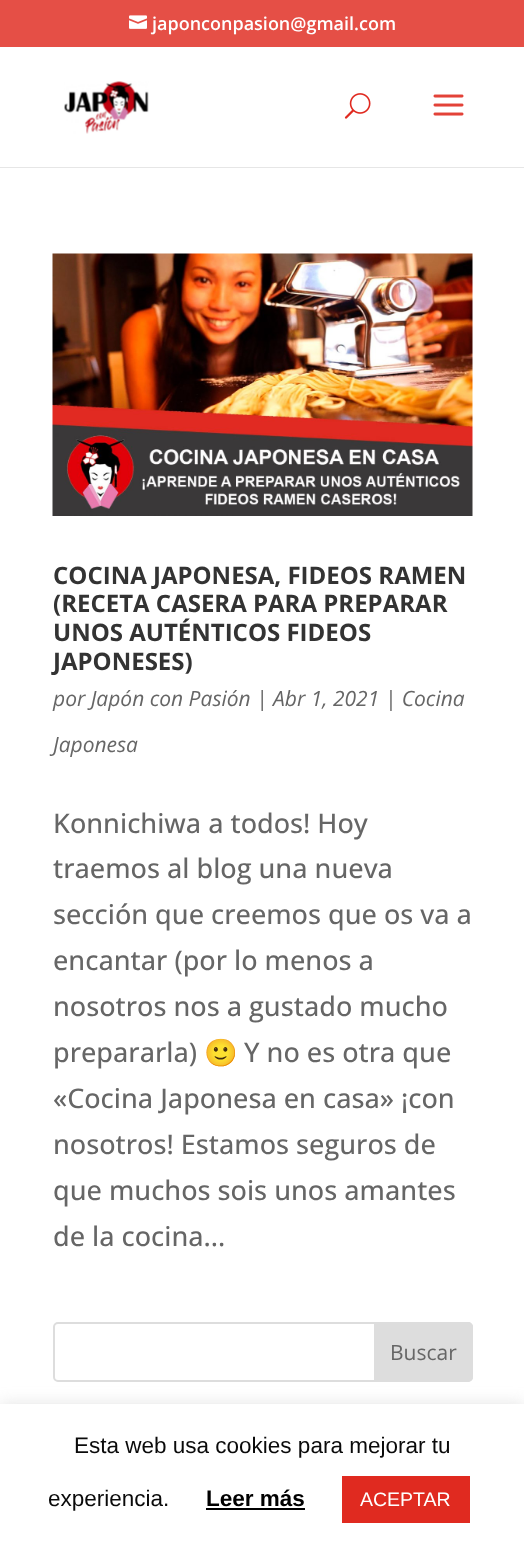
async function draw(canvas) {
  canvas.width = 524;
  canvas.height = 1547;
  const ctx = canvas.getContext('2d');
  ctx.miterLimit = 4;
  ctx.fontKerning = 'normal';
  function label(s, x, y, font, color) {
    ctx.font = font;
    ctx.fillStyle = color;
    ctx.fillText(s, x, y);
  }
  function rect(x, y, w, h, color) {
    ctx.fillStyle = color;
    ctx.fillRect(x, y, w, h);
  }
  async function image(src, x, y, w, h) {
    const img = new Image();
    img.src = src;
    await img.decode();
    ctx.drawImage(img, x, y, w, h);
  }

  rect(0, 0, 524, 1547, '#fff');
  rect(0, 0, 524, 47, '#e54f46');
  await image('assets/img1.png', 129, 15, 18, 14);
  label('japonconpasion@gmail.com', 152, 30, '600 18px Open Sans', '#fff');
  rect(0, 167, 524, 1, '#e6e6e6');
  await image('assets/img2.png', 64, 81, 85, 53);
  await image('assets/img3.png', 344, 93, 27, 26);
  await image('assets/img4.png', 433, 94, 31, 22);
  await image('assets/img5.png', 52, 253, 421, 263);
  label('COCINA JAPONESA, FIDEOS RAMEN', 53, 584, 'bold 24px Open Sans', '#333');
  label('(RECETA CASERA PARA PREPARAR', 53, 612, 'bold 24px Open Sans', '#333');
  label('UNOS AUTÉNTICOS FIDEOS', 53, 641, 'bold 24px Open Sans', '#333');
  label('JAPONESES)', 53, 670, 'bold 24px Open Sans', '#333');
  label('por Japón con Pasión | Abr 1, 2021 | Cocina', 53, 706, 'italic 21px Open Sans', '#666');
  label('Japonesa', 53, 752, 'italic 21px Open Sans', '#666');
  label('Konnichiwa a todos! Hoy', 53, 833, '500 27px Open Sans', '#666');
  label('traemos al blog una nueva', 53, 878, '500 27px Open Sans', '#666');
  label('sección que creemos que os va a', 53, 924, '500 27px Open Sans', '#666');
  label('encantar (por lo menos a', 53, 970, '500 27px Open Sans', '#666');
  label('nosotros nos a gustado mucho', 53, 1016, '500 27px Open Sans', '#666');
  label('prepararla)', 53, 1062, '500 27px Open Sans', '#666');
  label('🙂', 204, 1062, '27px Noto Color Emoji', '#666');
  label('Y no es otra que', 244, 1062, '500 27px Open Sans', '#666');
  label('«Cocina Japonesa en casa» ¡con', 53, 1108, '500 27px Open Sans', '#666');
  label('nosotros! Estamos seguros de', 53, 1154, '500 27px Open Sans', '#666');
  label('que muchos sois unos amantes', 53, 1200, '500 27px Open Sans', '#666');
  label('de la cocina...', 53, 1246, '500 27px Open Sans', '#666');
  ctx.beginPath();
  ctx.roundRect(54, 1323, 418, 58, 4);
  ctx.strokeStyle = '#ddd';
  ctx.lineWidth = 2;
  ctx.stroke();
  ctx.fillStyle = '#ddd';
  ctx.beginPath();
  ctx.roundRect(375, 1323, 97, 58, [0, 4, 4, 0]);
  ctx.fill();
  ctx.stroke();
  label('Buscar', 390, 1360, '21px Open Sans', '#666');
  ctx.fillStyle = '#acabab4d';
  ctx.filter = 'blur(7.5px)';
  ctx.beginPath();
  ctx.rect(0, 1403, 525, 144);
  ctx.fill();
  ctx.filter = 'none';
  rect(0, 1404, 524, 143, '#fff');
  label('Esta web usa cookies para mejorar tu', 74, 1453, '22.5px Liberation Sans', '#0a0a0a');
  label('experiencia.', 48, 1506, '22.5px Liberation Sans', '#0a0a0a');
  label('Leer más', 206, 1506, 'bold 22.5px Liberation Sans', '#000');
  rect(206, 1508, 99, 2, '#000');
  rect(342, 1476, 128, 47, '#e02a20');
  label('ACEPTAR', 360, 1506, '19.5px Liberation Sans', '#fff');
}

draw(document.querySelector('canvas'));
